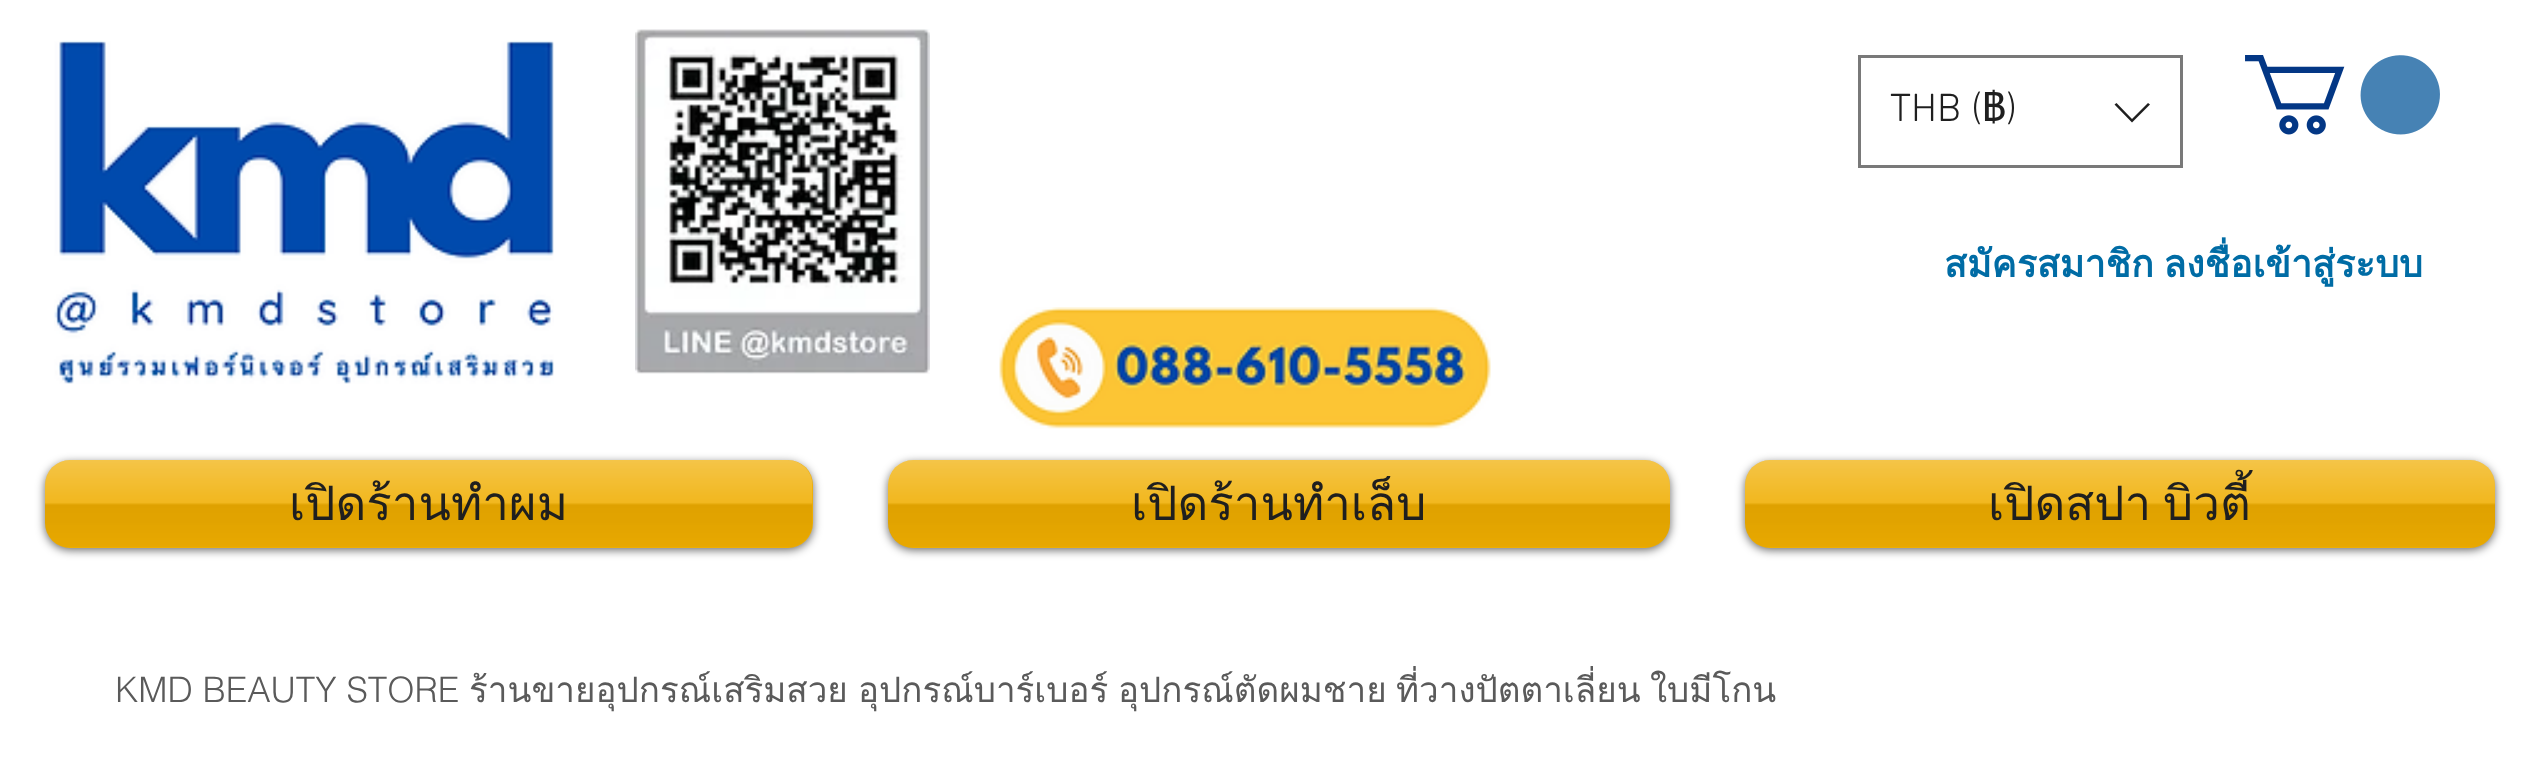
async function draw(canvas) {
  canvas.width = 2540;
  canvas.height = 767;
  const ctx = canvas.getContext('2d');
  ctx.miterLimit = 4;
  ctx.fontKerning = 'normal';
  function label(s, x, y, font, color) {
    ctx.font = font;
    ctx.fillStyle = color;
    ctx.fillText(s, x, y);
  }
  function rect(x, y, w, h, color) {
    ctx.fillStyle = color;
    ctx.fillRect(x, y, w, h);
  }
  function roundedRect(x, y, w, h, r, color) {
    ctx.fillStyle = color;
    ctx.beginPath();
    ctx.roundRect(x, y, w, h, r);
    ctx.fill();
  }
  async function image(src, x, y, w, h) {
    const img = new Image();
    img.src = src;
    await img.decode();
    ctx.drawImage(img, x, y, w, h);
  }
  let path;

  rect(0, 0, 2540, 767, '#fff');
  await image('assets/img1.png', 54, 40, 500, 344);
  await image('assets/img2.png', 635, 29, 295, 345);
  ctx.strokeStyle = '#797979';
  ctx.lineWidth = 3;
  ctx.strokeRect(1859.5, 56.5, 322, 110);
  label('THB (', 1890, 121, '300 40px "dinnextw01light"', '#1f1f1f');
  label('฿', 1982, 121, '40px Loma', '#1f1f1f');
  label(')', 2006, 121, '300 40px "dinnextw01light"', '#1f1f1f');
  path = new Path2D('M2148 103L2150 104.5L2132 122.5L2114.5 104.5L2116.5 103L2132 119Z');
  ctx.fill(path, 'evenodd');
  await image('assets/img3.png', 2245, 55, 195, 80);
  ctx.wordSpacing = '-3px';
  label('สมัครสมาชิก ลงชื่อเข้าสู่ระบบ', 1944, 277, 'bold 37.5px Loma', '#006ca5');
  await image('assets/img4.png', 999, 307, 492, 122);
  ctx.fillStyle = '#00000099';
  ctx.filter = 'blur(5px)';
  ctx.beginPath();
  ctx.roundRect(45, 463, 768, 87, 25);
  ctx.fill();
  ctx.filter = 'none';
  roundedRect(45, 460, 768, 88, 25, '#f0ae00');
  await image('assets/img5.png', 45, 460, 768, 87);
  ctx.wordSpacing = '0px';
  label('เปิดร้านทำผม', 289, 520, '47.5px Loma', '#1f1f1f');
  ctx.fillStyle = '#00000099';
  ctx.filter = 'blur(5px)';
  ctx.beginPath();
  ctx.roundRect(888, 463, 782, 87, 25);
  ctx.fill();
  ctx.filter = 'none';
  roundedRect(888, 460, 782, 88, 25, '#f0ae00');
  await image('assets/img6.png', 888, 460, 782, 87);
  label('เปิดร้านทำเล็บ', 1131, 520, '47.5px Loma', '#1f1f1f');
  ctx.fillStyle = '#00000099';
  ctx.filter = 'blur(5px)';
  ctx.beginPath();
  ctx.roundRect(1745, 463, 750, 87, 25);
  ctx.fill();
  ctx.filter = 'none';
  roundedRect(1745, 460, 750, 88, 25, '#f0ae00');
  await image('assets/img7.png', 1745, 460, 750, 87);
  ctx.wordSpacing = '-4px';
  label('เปิดสปา บิวตี้', 1988, 520, '47.5px Loma', '#1f1f1f');
  ctx.wordSpacing = '0px';
  label('KMD BEAUTY STORE', 115, 702, '300 35px helvetica', '#5a5a5a');
  label('ร้านขายอุปกรณ์เสริมสวย', 469, 702, '35px Loma', '#5a5a5a');
  label('อุปกรณ์บาร์เบอร์', 858, 702, '35px Loma', '#5a5a5a');
  label('อุปกรณ์ตัดผมชาย', 1118, 702, '35px Loma', '#5a5a5a');
  label('ที่วางปัตตาเลี่ยน', 1396, 702, '35px Loma', '#5a5a5a');
  label('ใบมีโกน', 1650, 702, '35px Loma', '#5a5a5a');
}

draw(document.querySelector('canvas'));
